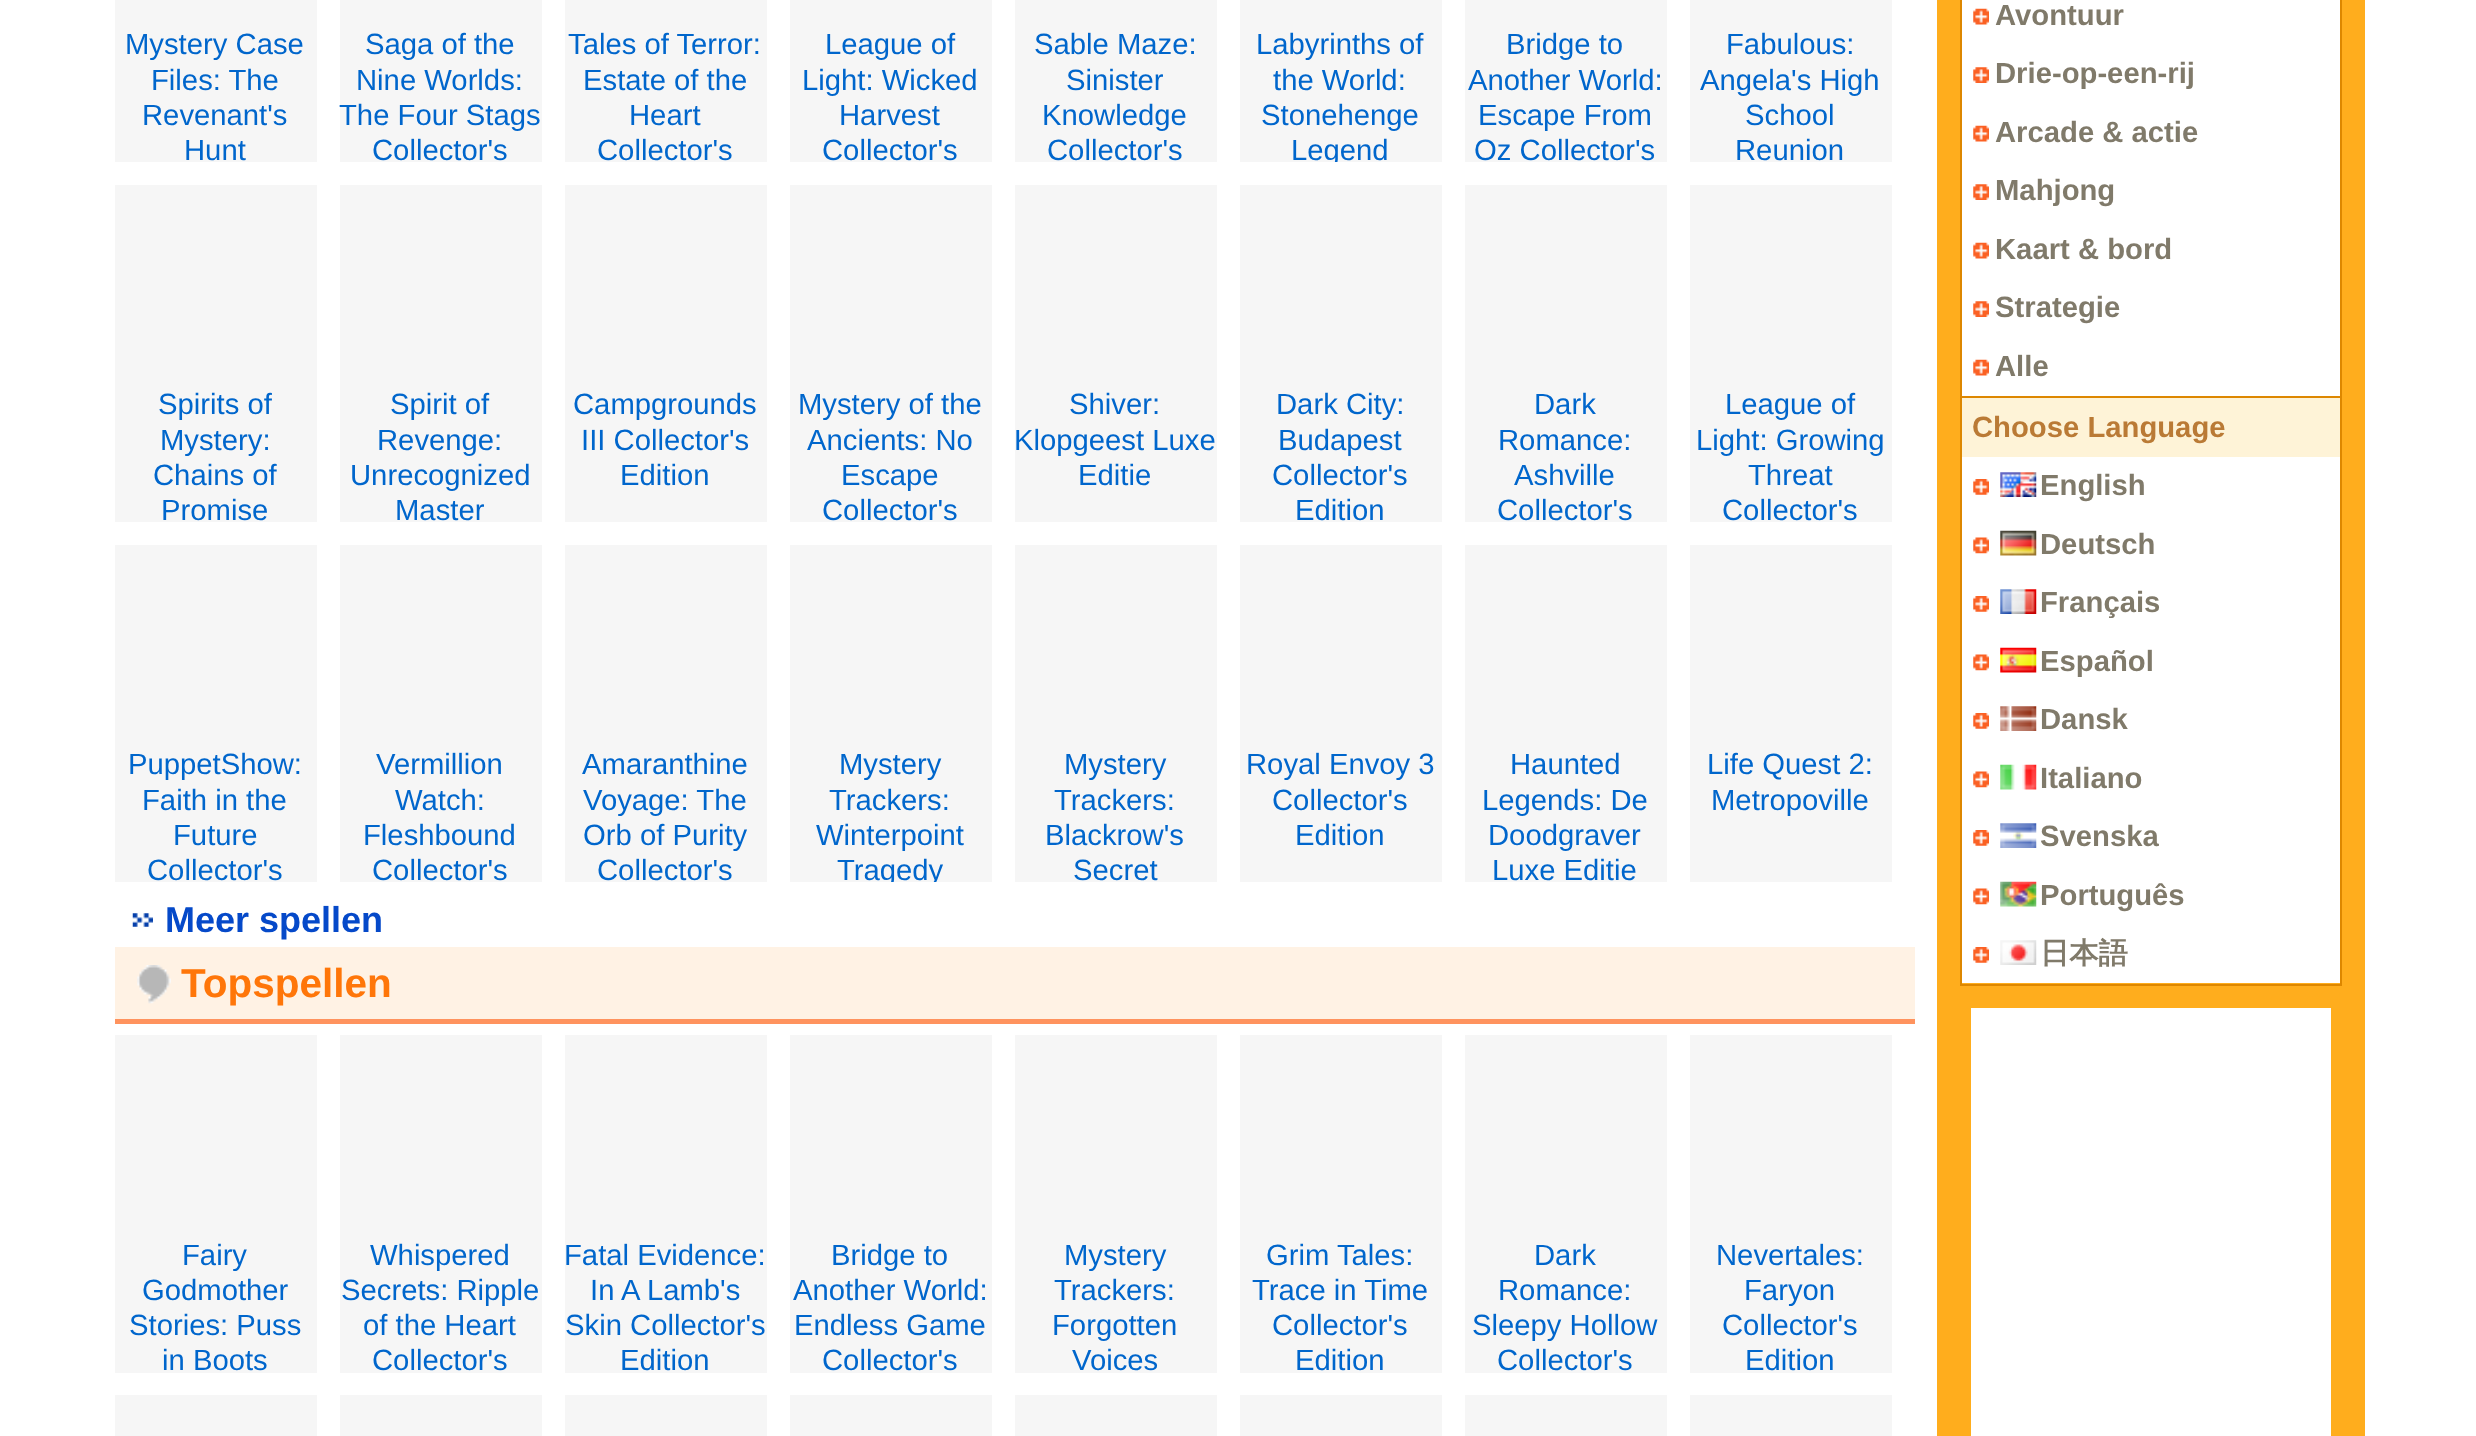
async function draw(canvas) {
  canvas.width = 2476;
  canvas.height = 1436;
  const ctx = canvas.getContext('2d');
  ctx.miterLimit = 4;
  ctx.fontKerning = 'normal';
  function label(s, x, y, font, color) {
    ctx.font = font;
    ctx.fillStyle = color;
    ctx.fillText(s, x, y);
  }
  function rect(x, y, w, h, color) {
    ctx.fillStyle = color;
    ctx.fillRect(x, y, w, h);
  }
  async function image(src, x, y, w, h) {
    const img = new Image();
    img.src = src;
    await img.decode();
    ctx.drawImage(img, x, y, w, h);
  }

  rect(0, 0, 2476, 1436, '#fff');
  rect(115, 0, 202, 162, '#f6f6f6');
  label('Mystery Case', 125, 54, '29.25px Liberation Sans', '#06c');
  label('Files: The', 151, 90, '29.25px Liberation Sans', '#06c');
  label('Revenant\'s', 142, 125, '29.25px Liberation Sans', '#06c');
  label('Hunt', 184, 160, '29.25px Liberation Sans', '#06c');
  rect(340, 0, 202, 162, '#f6f6f6');
  label('Saga of the', 365, 54, '29.25px Liberation Sans', '#06c');
  label('Nine Worlds:', 356, 90, '29.25px Liberation Sans', '#06c');
  label('The Four Stags', 339, 125, '29.25px Liberation Sans', '#06c');
  label('Collector\'s', 372, 160, '29.25px Liberation Sans', '#06c');
  rect(565, 0, 202, 162, '#f6f6f6');
  label('Tales of Terror:', 568, 54, '29.25px Liberation Sans', '#06c');
  label('Estate of the', 583, 90, '29.25px Liberation Sans', '#06c');
  label('Heart', 629, 125, '29.25px Liberation Sans', '#06c');
  label('Collector\'s', 597, 160, '29.25px Liberation Sans', '#06c');
  rect(790, 0, 202, 162, '#f6f6f6');
  label('League of', 825, 54, '29.25px Liberation Sans', '#06c');
  label('Light: Wicked', 802, 90, '29.25px Liberation Sans', '#06c');
  label('Harvest', 839, 125, '29.25px Liberation Sans', '#06c');
  label('Collector\'s', 822, 160, '29.25px Liberation Sans', '#06c');
  rect(1015, 0, 202, 162, '#f6f6f6');
  label('Sable Maze:', 1034, 54, '29.25px Liberation Sans', '#06c');
  label('Sinister', 1066, 90, '29.25px Liberation Sans', '#06c');
  label('Knowledge', 1042, 125, '29.25px Liberation Sans', '#06c');
  label('Collector\'s', 1047, 160, '29.25px Liberation Sans', '#06c');
  rect(1240, 0, 202, 162, '#f6f6f6');
  label('Labyrinths of', 1256, 54, '29.25px Liberation Sans', '#06c');
  label('the World:', 1273, 90, '29.25px Liberation Sans', '#06c');
  label('Stonehenge', 1261, 125, '29.25px Liberation Sans', '#06c');
  ctx.save();
  ctx.beginPath();
  ctx.rect(1240, 0, 202, 162);
  ctx.clip();
  label('Legend', 1291, 160, '29.25px Liberation Sans', '#06c');
  ctx.restore();
  rect(1465, 0, 202, 162, '#f6f6f6');
  label('Bridge to', 1506, 54, '29.25px Liberation Sans', '#06c');
  label('Another World:', 1468, 90, '29.25px Liberation Sans', '#06c');
  label('Escape From', 1478, 125, '29.25px Liberation Sans', '#06c');
  label('Oz Collector\'s', 1474, 160, '29.25px Liberation Sans', '#06c');
  rect(1690, 0, 202, 162, '#f6f6f6');
  label('Fabulous:', 1726, 54, '29.25px Liberation Sans', '#06c');
  label('Angela\'s High', 1700, 90, '29.25px Liberation Sans', '#06c');
  label('School', 1745, 125, '29.25px Liberation Sans', '#06c');
  label('Reunion', 1735, 160, '29.25px Liberation Sans', '#06c');
  rect(115, 185, 202, 337, '#f6f6f6');
  label('Spirits of', 158, 414, '29.25px Liberation Sans', '#06c');
  label('Mystery:', 160, 450, '29.25px Liberation Sans', '#06c');
  label('Chains of', 153, 485, '29.25px Liberation Sans', '#06c');
  label('Promise', 161, 520, '29.25px Liberation Sans', '#06c');
  rect(340, 185, 202, 337, '#f6f6f6');
  label('Spirit of', 390, 414, '29.25px Liberation Sans', '#06c');
  label('Revenge:', 377, 450, '29.25px Liberation Sans', '#06c');
  label('Unrecognized', 350, 485, '29.25px Liberation Sans', '#06c');
  label('Master', 395, 520, '29.25px Liberation Sans', '#06c');
  rect(565, 185, 202, 337, '#f6f6f6');
  label('Campgrounds', 573, 414, '29.25px Liberation Sans', '#06c');
  label('III Collector\'s', 581, 450, '29.25px Liberation Sans', '#06c');
  label('Edition', 620, 485, '29.25px Liberation Sans', '#06c');
  rect(790, 185, 202, 337, '#f6f6f6');
  label('Mystery of the', 798, 414, '29.25px Liberation Sans', '#06c');
  label('Ancients: No', 807, 450, '29.25px Liberation Sans', '#06c');
  label('Escape', 841, 485, '29.25px Liberation Sans', '#06c');
  label('Collector\'s', 822, 520, '29.25px Liberation Sans', '#06c');
  rect(1015, 185, 202, 337, '#f6f6f6');
  label('Shiver:', 1069, 414, '29.25px Liberation Sans', '#06c');
  label('Klopgeest Luxe', 1014, 450, '29.25px Liberation Sans', '#06c');
  label('Editie', 1078, 485, '29.25px Liberation Sans', '#06c');
  rect(1240, 185, 202, 337, '#f6f6f6');
  label('Dark City:', 1276, 414, '29.25px Liberation Sans', '#06c');
  label('Budapest', 1278, 450, '29.25px Liberation Sans', '#06c');
  label('Collector\'s', 1272, 485, '29.25px Liberation Sans', '#06c');
  label('Edition', 1295, 520, '29.25px Liberation Sans', '#06c');
  rect(1465, 185, 202, 337, '#f6f6f6');
  label('Dark', 1534, 414, '29.25px Liberation Sans', '#06c');
  label('Romance:', 1498, 450, '29.25px Liberation Sans', '#06c');
  label('Ashville', 1514, 485, '29.25px Liberation Sans', '#06c');
  label('Collector\'s', 1497, 520, '29.25px Liberation Sans', '#06c');
  rect(1690, 185, 202, 337, '#f6f6f6');
  label('League of', 1725, 414, '29.25px Liberation Sans', '#06c');
  label('Light: Growing', 1696, 450, '29.25px Liberation Sans', '#06c');
  label('Threat', 1748, 485, '29.25px Liberation Sans', '#06c');
  label('Collector\'s', 1722, 520, '29.25px Liberation Sans', '#06c');
  rect(115, 545, 202, 337, '#f6f6f6');
  label('PuppetShow:', 128, 774, '29.25px Liberation Sans', '#06c');
  label('Faith in the', 142, 810, '29.25px Liberation Sans', '#06c');
  label('Future', 173, 845, '29.25px Liberation Sans', '#06c');
  label('Collector\'s', 147, 880, '29.25px Liberation Sans', '#06c');
  rect(340, 545, 202, 337, '#f6f6f6');
  label('Vermillion', 376, 774, '29.25px Liberation Sans', '#06c');
  label('Watch:', 395, 810, '29.25px Liberation Sans', '#06c');
  label('Fleshbound', 363, 845, '29.25px Liberation Sans', '#06c');
  label('Collector\'s', 372, 880, '29.25px Liberation Sans', '#06c');
  rect(565, 545, 202, 337, '#f6f6f6');
  label('Amaranthine', 582, 774, '29.25px Liberation Sans', '#06c');
  label('Voyage: The', 583, 810, '29.25px Liberation Sans', '#06c');
  label('Orb of Purity', 583, 845, '29.25px Liberation Sans', '#06c');
  label('Collector\'s', 597, 880, '29.25px Liberation Sans', '#06c');
  rect(790, 545, 202, 337, '#f6f6f6');
  label('Mystery', 839, 774, '29.25px Liberation Sans', '#06c');
  label('Trackers:', 829, 810, '29.25px Liberation Sans', '#06c');
  label('Winterpoint', 816, 845, '29.25px Liberation Sans', '#06c');
  ctx.save();
  ctx.beginPath();
  ctx.rect(790, 545, 202, 337);
  ctx.clip();
  label('Tragedy', 837, 880, '29.25px Liberation Sans', '#06c');
  ctx.restore();
  rect(1015, 545, 202, 337, '#f6f6f6');
  label('Mystery', 1064, 774, '29.25px Liberation Sans', '#06c');
  label('Trackers:', 1054, 810, '29.25px Liberation Sans', '#06c');
  label('Blackrow\'s', 1045, 845, '29.25px Liberation Sans', '#06c');
  label('Secret', 1073, 880, '29.25px Liberation Sans', '#06c');
  rect(1240, 545, 202, 337, '#f6f6f6');
  label('Royal Envoy 3', 1246, 774, '29.25px Liberation Sans', '#06c');
  label('Collector\'s', 1272, 810, '29.25px Liberation Sans', '#06c');
  label('Edition', 1295, 845, '29.25px Liberation Sans', '#06c');
  rect(1465, 545, 202, 337, '#f6f6f6');
  label('Haunted', 1510, 774, '29.25px Liberation Sans', '#06c');
  label('Legends: De', 1482, 810, '29.25px Liberation Sans', '#06c');
  label('Doodgraver', 1488, 845, '29.25px Liberation Sans', '#06c');
  label('Luxe Editie', 1492, 880, '29.25px Liberation Sans', '#06c');
  rect(1690, 545, 202, 337, '#f6f6f6');
  label('Life Quest 2:', 1707, 774, '29.25px Liberation Sans', '#06c');
  label('Metropoville', 1711, 810, '29.25px Liberation Sans', '#06c');
  await image('assets/img1.png', 132, 913, 21, 14);
  label('Meer spellen', 165, 932, 'bold 36px Liberation Sans', '#0549c9');
  rect(115, 947, 1800, 72, '#fff2e4');
  await image('assets/img2.png', 137, 965, 34, 39);
  rect(115, 1019, 1800, 5, '#ff935e');
  label('Topspellen', 181, 997, 'bold 40.5px Liberation Sans', '#ff7609');
  rect(115, 1035, 202, 338, '#f6f6f6');
  label('Fairy', 182, 1265, '29.25px Liberation Sans', '#06c');
  label('Godmother', 142, 1300, '29.25px Liberation Sans', '#06c');
  label('Stories: Puss', 129, 1335, '29.25px Liberation Sans', '#06c');
  label('in Boots', 162, 1370, '29.25px Liberation Sans', '#06c');
  rect(340, 1035, 202, 338, '#f6f6f6');
  label('Whispered', 370, 1265, '29.25px Liberation Sans', '#06c');
  label('Secrets: Ripple', 341, 1300, '29.25px Liberation Sans', '#06c');
  label('of the Heart', 363, 1335, '29.25px Liberation Sans', '#06c');
  label('Collector\'s', 372, 1370, '29.25px Liberation Sans', '#06c');
  rect(565, 1035, 202, 338, '#f6f6f6');
  label('Fatal Evidence:', 564, 1265, '29.25px Liberation Sans', '#06c');
  label('In A Lamb\'s', 590, 1300, '29.25px Liberation Sans', '#06c');
  label('Skin Collector\'s', 565, 1335, '29.25px Liberation Sans', '#06c');
  label('Edition', 620, 1370, '29.25px Liberation Sans', '#06c');
  rect(790, 1035, 202, 338, '#f6f6f6');
  label('Bridge to', 831, 1265, '29.25px Liberation Sans', '#06c');
  label('Another World:', 793, 1300, '29.25px Liberation Sans', '#06c');
  label('Endless Game', 794, 1335, '29.25px Liberation Sans', '#06c');
  label('Collector\'s', 822, 1370, '29.25px Liberation Sans', '#06c');
  rect(1015, 1035, 202, 338, '#f6f6f6');
  label('Mystery', 1064, 1265, '29.25px Liberation Sans', '#06c');
  label('Trackers:', 1054, 1300, '29.25px Liberation Sans', '#06c');
  label('Forgotten', 1052, 1335, '29.25px Liberation Sans', '#06c');
  label('Voices', 1072, 1370, '29.25px Liberation Sans', '#06c');
  rect(1240, 1035, 202, 338, '#f6f6f6');
  label('Grim Tales:', 1266, 1265, '29.25px Liberation Sans', '#06c');
  label('Trace in Time', 1252, 1300, '29.25px Liberation Sans', '#06c');
  label('Collector\'s', 1272, 1335, '29.25px Liberation Sans', '#06c');
  label('Edition', 1295, 1370, '29.25px Liberation Sans', '#06c');
  rect(1465, 1035, 202, 338, '#f6f6f6');
  label('Dark', 1534, 1265, '29.25px Liberation Sans', '#06c');
  label('Romance:', 1498, 1300, '29.25px Liberation Sans', '#06c');
  label('Sleepy Hollow', 1472, 1335, '29.25px Liberation Sans', '#06c');
  label('Collector\'s', 1497, 1370, '29.25px Liberation Sans', '#06c');
  rect(1690, 1035, 202, 338, '#f6f6f6');
  label('Nevertales:', 1716, 1265, '29.25px Liberation Sans', '#06c');
  label('Faryon', 1744, 1300, '29.25px Liberation Sans', '#06c');
  label('Collector\'s', 1722, 1335, '29.25px Liberation Sans', '#06c');
  label('Edition', 1745, 1370, '29.25px Liberation Sans', '#06c');
  rect(115, 1395, 202, 41, '#f6f6f6');
  rect(340, 1395, 202, 41, '#f6f6f6');
  rect(565, 1395, 202, 41, '#f6f6f6');
  rect(790, 1395, 202, 41, '#f6f6f6');
  rect(1015, 1395, 202, 41, '#f6f6f6');
  rect(1240, 1395, 202, 41, '#f6f6f6');
  rect(1465, 1395, 202, 41, '#f6f6f6');
  rect(1690, 1395, 202, 41, '#f6f6f6');
  rect(1937, 0, 428, 1436, '#ffad1d');
  ctx.strokeStyle = '#dd8700';
  ctx.lineWidth = 2;
  ctx.strokeRect(1961, -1, 380, 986);
  rect(1962, 0, 378, 396, '#fff');
  await image('assets/img3.png', 1973, 8, 16, 17);
  label('Avontuur', 1995, 25, 'bold 29.25px Liberation Sans', '#807a6a');
  await image('assets/img4.png', 1973, 67, 16, 16);
  label('Drie-op-een-rij', 1995, 83, 'bold 29.25px Liberation Sans', '#807a6a');
  await image('assets/img3.png', 1973, 125, 16, 17);
  label('Arcade & actie', 1995, 142, 'bold 29.25px Liberation Sans', '#807a6a');
  await image('assets/img4.png', 1973, 184, 16, 16);
  label('Mahjong', 1995, 200, 'bold 29.25px Liberation Sans', '#807a6a');
  await image('assets/img3.png', 1973, 242, 16, 17);
  label('Kaart & bord', 1995, 259, 'bold 29.25px Liberation Sans', '#807a6a');
  await image('assets/img4.png', 1973, 301, 16, 16);
  label('Strategie', 1995, 317, 'bold 29.25px Liberation Sans', '#807a6a');
  await image('assets/img3.png', 1973, 359, 16, 17);
  label('Alle', 1995, 376, 'bold 29.25px Liberation Sans', '#807a6a');
  rect(1962, 398, 378, 59, '#fef3d7');
  rect(1962, 396, 378, 2, '#dd8700');
  label('Choose Language', 1972, 437, 'bold 29.25px Liberation Sans', '#ba7a35');
  rect(1962, 457, 378, 526, '#fff');
  await image('assets/img5.png', 1973, 479, 16, 16);
  await image('assets/img6.png', 2000, 472, 37, 25);
  label('English', 2040, 495, 'bold 29.25px Liberation Sans', '#807a6a');
  await image('assets/img7.png', 1973, 537, 16, 17);
  await image('assets/img8.png', 2000, 530, 37, 26);
  label('Deutsch', 2040, 554, 'bold 29.25px Liberation Sans', '#807a6a');
  await image('assets/img5.png', 1973, 596, 16, 16);
  await image('assets/img9.png', 2000, 589, 37, 25);
  label('Français', 2040, 612, 'bold 29.25px Liberation Sans', '#807a6a');
  await image('assets/img7.png', 1973, 654, 16, 17);
  await image('assets/img10.png', 2000, 647, 37, 26);
  label('Español', 2040, 671, 'bold 29.25px Liberation Sans', '#807a6a');
  await image('assets/img11.png', 1973, 713, 16, 16);
  await image('assets/img12.png', 2000, 706, 37, 25);
  label('Dansk', 2040, 729, 'bold 29.25px Liberation Sans', '#807a6a');
  await image('assets/img7.png', 1973, 771, 16, 17);
  await image('assets/img13.png', 2000, 764, 37, 26);
  label('Italiano', 2040, 788, 'bold 29.25px Liberation Sans', '#807a6a');
  await image('assets/img5.png', 1973, 830, 16, 16);
  await image('assets/img14.png', 2000, 823, 37, 25);
  label('Svenska', 2040, 846, 'bold 29.25px Liberation Sans', '#807a6a');
  await image('assets/img7.png', 1973, 888, 16, 17);
  await image('assets/img15.png', 2000, 881, 37, 26);
  label('Português', 2040, 905, 'bold 29.25px Liberation Sans', '#807a6a');
  await image('assets/img5.png', 1973, 947, 16, 16);
  await image('assets/img16.png', 2000, 940, 37, 25);
  label('日本語', 2040, 963, 'bold 29.25px WenQuanYi Zen Hei', '#807a6a');
  rect(1971, 1008, 360, 428, '#fff');
}

draw(document.querySelector('canvas'));
